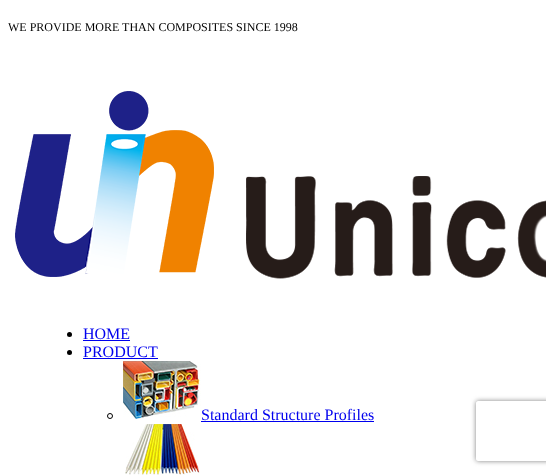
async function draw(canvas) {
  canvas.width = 546;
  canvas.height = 475;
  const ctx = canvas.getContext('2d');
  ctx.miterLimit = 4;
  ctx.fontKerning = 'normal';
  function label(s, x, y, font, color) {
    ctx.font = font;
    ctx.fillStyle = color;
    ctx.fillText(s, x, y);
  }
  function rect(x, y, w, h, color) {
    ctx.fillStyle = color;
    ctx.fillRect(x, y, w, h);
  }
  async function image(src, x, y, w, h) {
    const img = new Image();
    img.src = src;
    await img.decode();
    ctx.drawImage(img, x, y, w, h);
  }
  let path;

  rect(0, 0, 546, 475, '#fff');
  label('WE PROVIDE MORE THAN COMPOSITES SINCE 1998', 8, 31, '12px Liberation Serif', '#000');
  await image('assets/img1.png', 15, 91, 531, 188);
  ctx.beginPath();
  ctx.arc(69.5, 334.5, 2.5, 0, 2 * Math.PI);
  ctx.fill();
  label('HOME', 83, 339, '16px Liberation Serif', '#00e');
  rect(83, 340, 47, 1, '#00e');
  ctx.fillStyle = '#000';
  ctx.beginPath();
  ctx.arc(69.5, 352.5, 2.5, 0, 2 * Math.PI);
  ctx.fill();
  label('PRODUCT', 83, 357, '16px Liberation Serif', '#00e');
  rect(83, 358, 75, 1, '#00e');
  ctx.beginPath();
  ctx.arc(110, 416, 2.5, 0, 2 * Math.PI);
  ctx.strokeStyle = '#000';
  ctx.stroke();
  await image('assets/img2.png', 123, 361, 78, 58);
  label('Standard Structure Profiles', 201, 420, '16px Liberation Serif', '#00e');
  rect(201, 421, 173, 1, '#00e');
  await image('assets/img3.png', 125, 424, 75, 51);
  ctx.save();
  path = new Path2D('M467 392H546V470H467ZM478 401H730C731 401 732 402 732 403V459C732 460 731 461 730 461H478C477 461 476 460 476 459V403C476 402 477 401 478 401Z');
  ctx.clip(path, 'evenodd');
  ctx.fillStyle = '#808080';
  ctx.filter = 'blur(2.5px)';
  ctx.beginPath();
  ctx.roundRect(476, 401, 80, 60, 2);
  ctx.fill();
  ctx.filter = 'none';
  ctx.restore();
}

draw(document.querySelector('canvas'));
